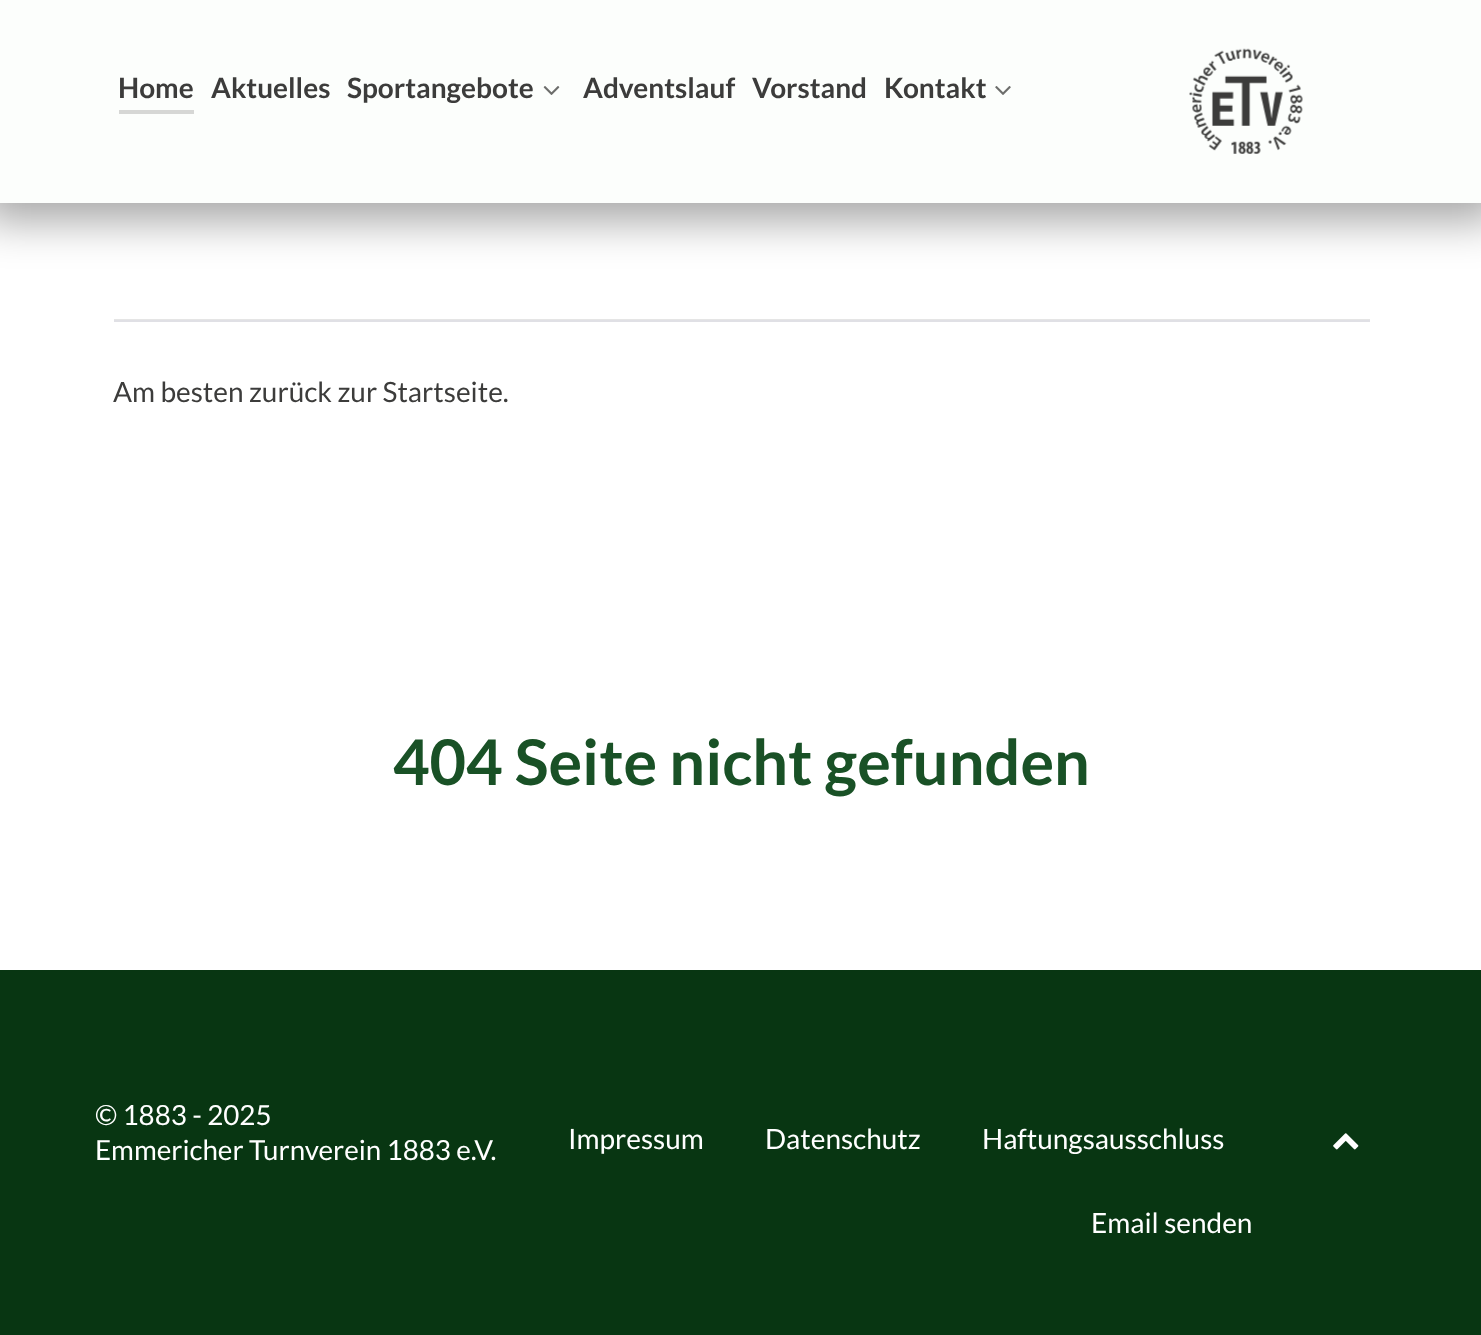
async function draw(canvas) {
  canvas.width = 1481;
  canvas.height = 1335;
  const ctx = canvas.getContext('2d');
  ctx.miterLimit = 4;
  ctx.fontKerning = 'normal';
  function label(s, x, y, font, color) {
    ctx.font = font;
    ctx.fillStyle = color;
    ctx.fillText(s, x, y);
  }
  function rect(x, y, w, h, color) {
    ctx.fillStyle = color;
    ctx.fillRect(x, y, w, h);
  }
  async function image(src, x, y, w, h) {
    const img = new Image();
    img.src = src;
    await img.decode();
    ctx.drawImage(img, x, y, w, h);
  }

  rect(0, 0, 1481, 1335, '#fff');
  ctx.fillStyle = '#00000059';
  ctx.filter = 'blur(22px)';
  ctx.beginPath();
  ctx.rect(-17, -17, 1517, 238);
  ctx.fill();
  ctx.filter = 'none';
  rect(0, 0, 1481, 203, '#fcfefc');
  rect(119, 110, 75, 4, '#d6d7d5');
  label('Home', 118, 98, 'bold 28px Lato', '#3c3c3b');
  label('Aktuelles', 211, 98, 'bold 28px Lato', '#3c3c3b');
  label('Sportangebote', 347, 98, 'bold 28px Lato', '#3c3c3b');
  await image('assets/img1.png', 543, 86, 17, 9);
  label('Adventslauf', 583, 98, 'bold 28px Lato', '#3c3c3b');
  label('Vorstand', 752, 98, 'bold 28px Lato', '#3c3c3b');
  label('Kontakt', 884, 98, 'bold 28px Lato', '#3c3c3b');
  await image('assets/img2.png', 995, 86, 16, 9);
  await image('assets/img3.png', 1189, 48, 114, 106);
  rect(114, 319, 1256, 1, '#e5e5e5');
  rect(114, 320, 1256, 2, '#e0e0e5');
  label('Am besten zurück zur Startseite.', 113, 402, '28px Lato', '#3c3c3b');
  label('404 Seite nicht gefunden', 393, 785, 'bold 63px Lato', '#195126');
  rect(0, 970, 1481, 365, '#083612');
  label('© 1883 - 2025', 95, 1125, '27.75px Lato', '#fff');
  label('Emmericher Turnverein 1883 e.V.', 95, 1160, '27.75px Lato', '#fff');
  label('Impressum', 568, 1149, '28px Lato', '#fff');
  label('Datenschutz', 765, 1149, '28px Lato', '#fff');
  label('Haftungsausschluss', 982, 1149, '28px Lato', '#fff');
  label('Email senden', 1091, 1233, '28px Lato', '#fff');
  await image('assets/img4.png', 1333, 1133, 26, 17);
}

draw(document.querySelector('canvas'));
